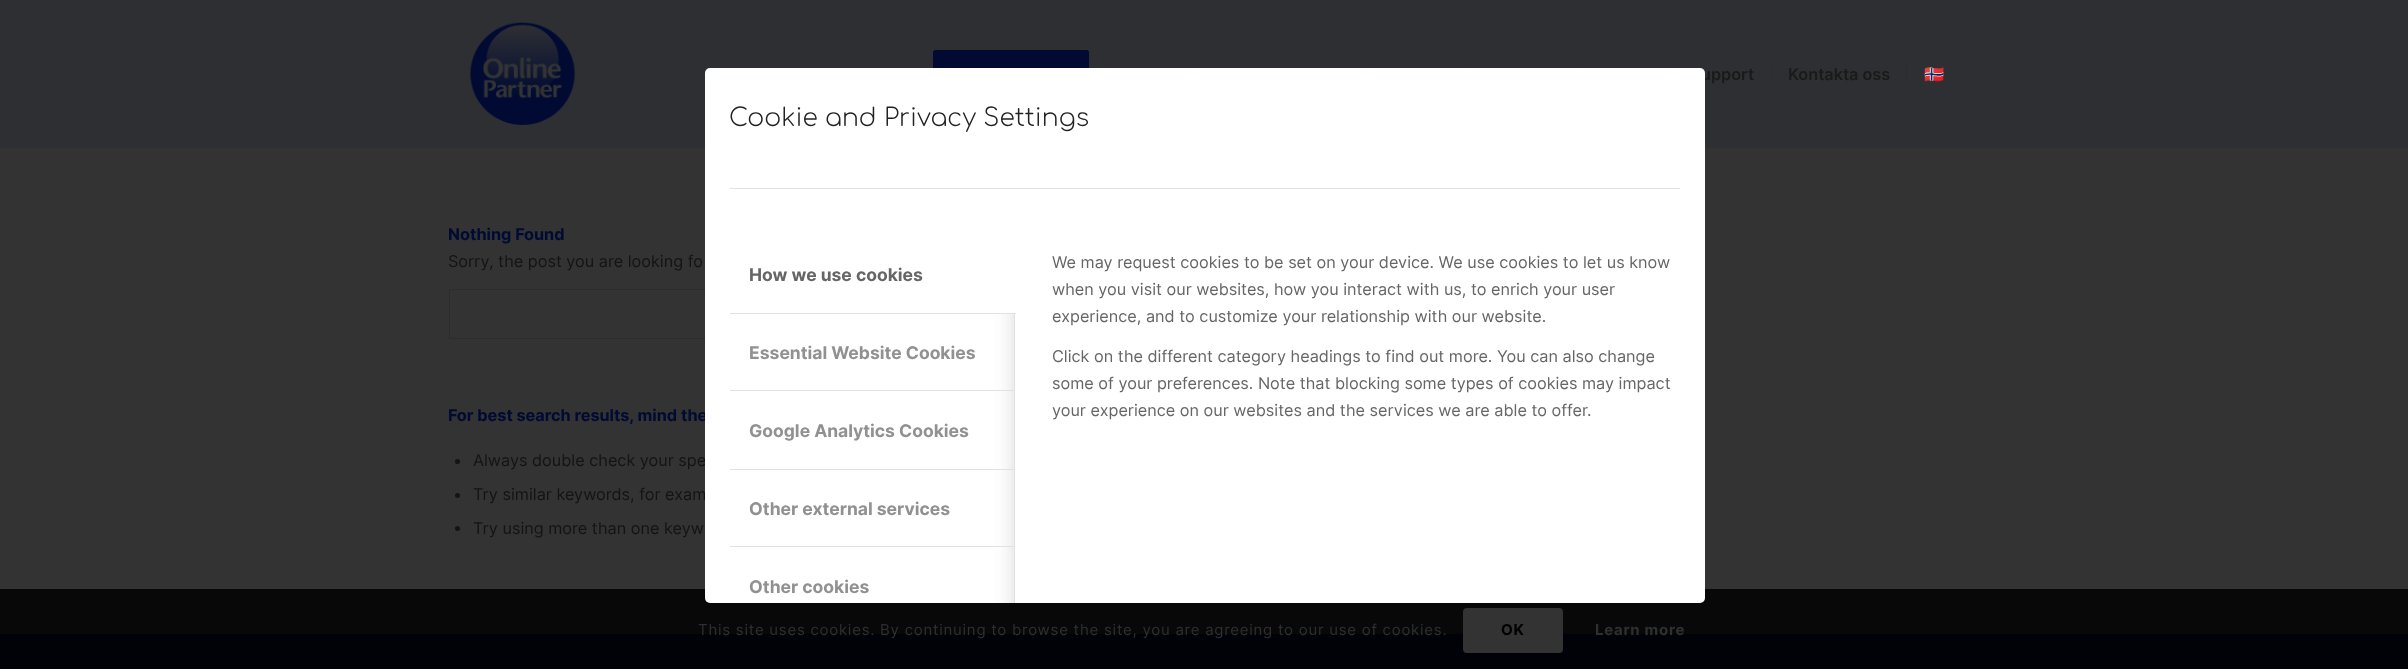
async function draw(canvas) {
  canvas.width = 2408;
  canvas.height = 669;
  const ctx = canvas.getContext('2d');
  ctx.miterLimit = 4;
  ctx.fontKerning = 'normal';
  function label(s, x, y, font, color) {
    ctx.font = font;
    ctx.fillStyle = color;
    ctx.fillText(s, x, y);
  }
  function rect(x, y, w, h, color) {
    ctx.fillStyle = color;
    ctx.fillRect(x, y, w, h);
  }
  function roundedRect(x, y, w, h, r, color) {
    ctx.fillStyle = color;
    ctx.beginPath();
    ctx.roundRect(x, y, w, h, r);
    ctx.fill();
  }
  async function image(src, x, y, w, h) {
    const img = new Image();
    img.src = src;
    await img.decode();
    ctx.drawImage(img, x, y, w, h);
  }

  rect(0, 0, 2408, 669, '#333');
  rect(0, 0, 2408, 148, '#2e2f33');
  await image('assets/img1.png', 470, 22, 105, 103);
  ctx.fillStyle = '#000a33';
  ctx.beginPath();
  ctx.roundRect(934.5, 51.5, 153, 45, 1);
  ctx.fill();
  ctx.strokeStyle = '#000a33';
  ctx.lineWidth = 3;
  ctx.stroke();
  rect(1105, 64, 1, 4, '#2d2d2d');
  rect(1195, 64, 1, 4, '#2d2d2d');
  rect(1370, 64, 1, 4, '#2d2d2d');
  rect(1469, 64, 1, 4, '#2d2d2d');
  rect(1580, 64, 1, 4, '#2d2d2d');
  label('upport', 1701, 80, '600 16.25px Inter', '#1a1a1a');
  rect(1674, 64, 1, 4, '#2d2d2d');
  label('Kontakta oss', 1788, 80, '600 16.25px Inter', '#1a1a1a');
  rect(1771, 64, 1, 20, '#2d2d2d');
  label('🇳🇴', 1924, 80, 'bold 16.25px Noto Color Emoji', '#1a1a1a');
  rect(1906, 64, 1, 20, '#2d2d2d');
  rect(0, 589, 2408, 45, '#080808');
  label('Nothing Found', 448, 240, 'bold 16.25px Inter', '#000a33');
  label('Sorry, the post you are looking fo', 448, 267, '16.25px Inter', '#141414');
  ctx.strokeStyle = '#2d2d2d';
  ctx.lineWidth = 1;
  ctx.strokeRect(449.5, 289.5, 374, 49);
  label('For best search results, mind the', 448, 421, 'bold 16.25px Inter', '#000a33');
  ctx.fillStyle = '#141414';
  ctx.beginPath();
  ctx.arc(457.5, 461.5, 2.5, 0, 2 * Math.PI);
  ctx.fill();
  label('Always double check your spe', 473, 466, '16.25px Inter', '#141414');
  ctx.beginPath();
  ctx.arc(457.5, 495.5, 2.5, 0, 2 * Math.PI);
  ctx.fill();
  label('Try similar keywords, for exam', 473, 500, '16.25px Inter', '#141414');
  ctx.beginPath();
  ctx.arc(457.5, 528.5, 2.5, 0, 2 * Math.PI);
  ctx.fill();
  label('Try using more than one keyw', 473, 534, '16.25px Inter', '#141414');
  rect(0, 634, 2408, 35, '#000208');
  roundedRect(705, 68, 1000, 535, 5, '#fff');
  label('Cookie and Privacy Settings', 729, 126, '300 25px Comfortaa', '#222');
  rect(730, 188, 950, 1, '#e1e1e1');
  roundedRect(1463, 608, 100, 45, 4, '#333');
  ctx.save();
  ctx.beginPath();
  ctx.roundRect(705, 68, 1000, 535, 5);
  ctx.clip();
  ctx.beginPath();
  ctx.rect(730, 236, 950, 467);
  ctx.clip();
  ctx.fillStyle = '#00000033';
  ctx.filter = 'blur(12.5px)';
  ctx.beginPath();
  ctx.rect(1018, 249, 640, 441);
  ctx.fill();
  ctx.filter = 'none';
  ctx.restore();
  rect(1014, 313, 1, 78, '#e1e1e1');
  ctx.fillStyle = '#fff';
  ctx.beginPath();
  ctx.roundRect(1015, 236, 665, 367, [2.5, 2.5, 0, 0]);
  ctx.fill();
  ctx.beginPath();
  ctx.roundRect(730, 236, 286, 78, [2.5, 0, 0, 0]);
  ctx.fill();
  rect(730, 313, 286, 1, '#e1e1e1');
  label('How we use cookies', 749, 281, 'bold 17.5px Inter', '#666');
  rect(730, 390, 285, 1, '#e1e1e1');
  label('Essential Website Cookies', 749, 359, 'bold 17.5px Inter', '#919191');
  rect(1014, 390, 1, 80, '#e1e1e1');
  rect(730, 469, 285, 1, '#e1e1e1');
  label('Google Analytics Cookies', 749, 437, 'bold 17.5px Inter', '#919191');
  rect(1014, 469, 1, 79, '#e1e1e1');
  rect(730, 546, 285, 1, '#e1e1e1');
  label('Other external services', 749, 515, 'bold 17.5px Inter', '#919191');
  rect(1014, 546, 1, 57, '#e1e1e1');
  label('Other cookies', 749, 593, 'bold 17.5px Inter', '#919191');
  label('We may request cookies to be set on your device. We use cookies to let us know', 1052, 268, '16.25px Inter', '#666');
  label('when you visit our websites, how you interact with us, to enrich your user', 1052, 295, '16.25px Inter', '#666');
  label('experience, and to customize your relationship with our website.', 1052, 322, '16.25px Inter', '#666');
  label('Click on the different category headings to find out more. You can also change', 1052, 362, '16.25px Inter', '#666');
  label('some of your preferences. Note that blocking some types of cookies may impact', 1052, 389, '16.25px Inter', '#666');
  label('your experience on our websites and the services we are able to offer.', 1052, 416, '16.25px Inter', '#666');
  ctx.letterSpacing = '0.75px';
  label('This site uses cookies. By continuing to browse the site, you are agreeing to our use of cookies.', 698, 635, '15px Inter', '#2f2f2f');
  label('OK', 1501, 635, 'bold 15px Inter', '#000');
  label('Learn more', 1595, 635, 'bold 15px Inter', '#2f2f2f');
}

draw(document.querySelector('canvas'));
